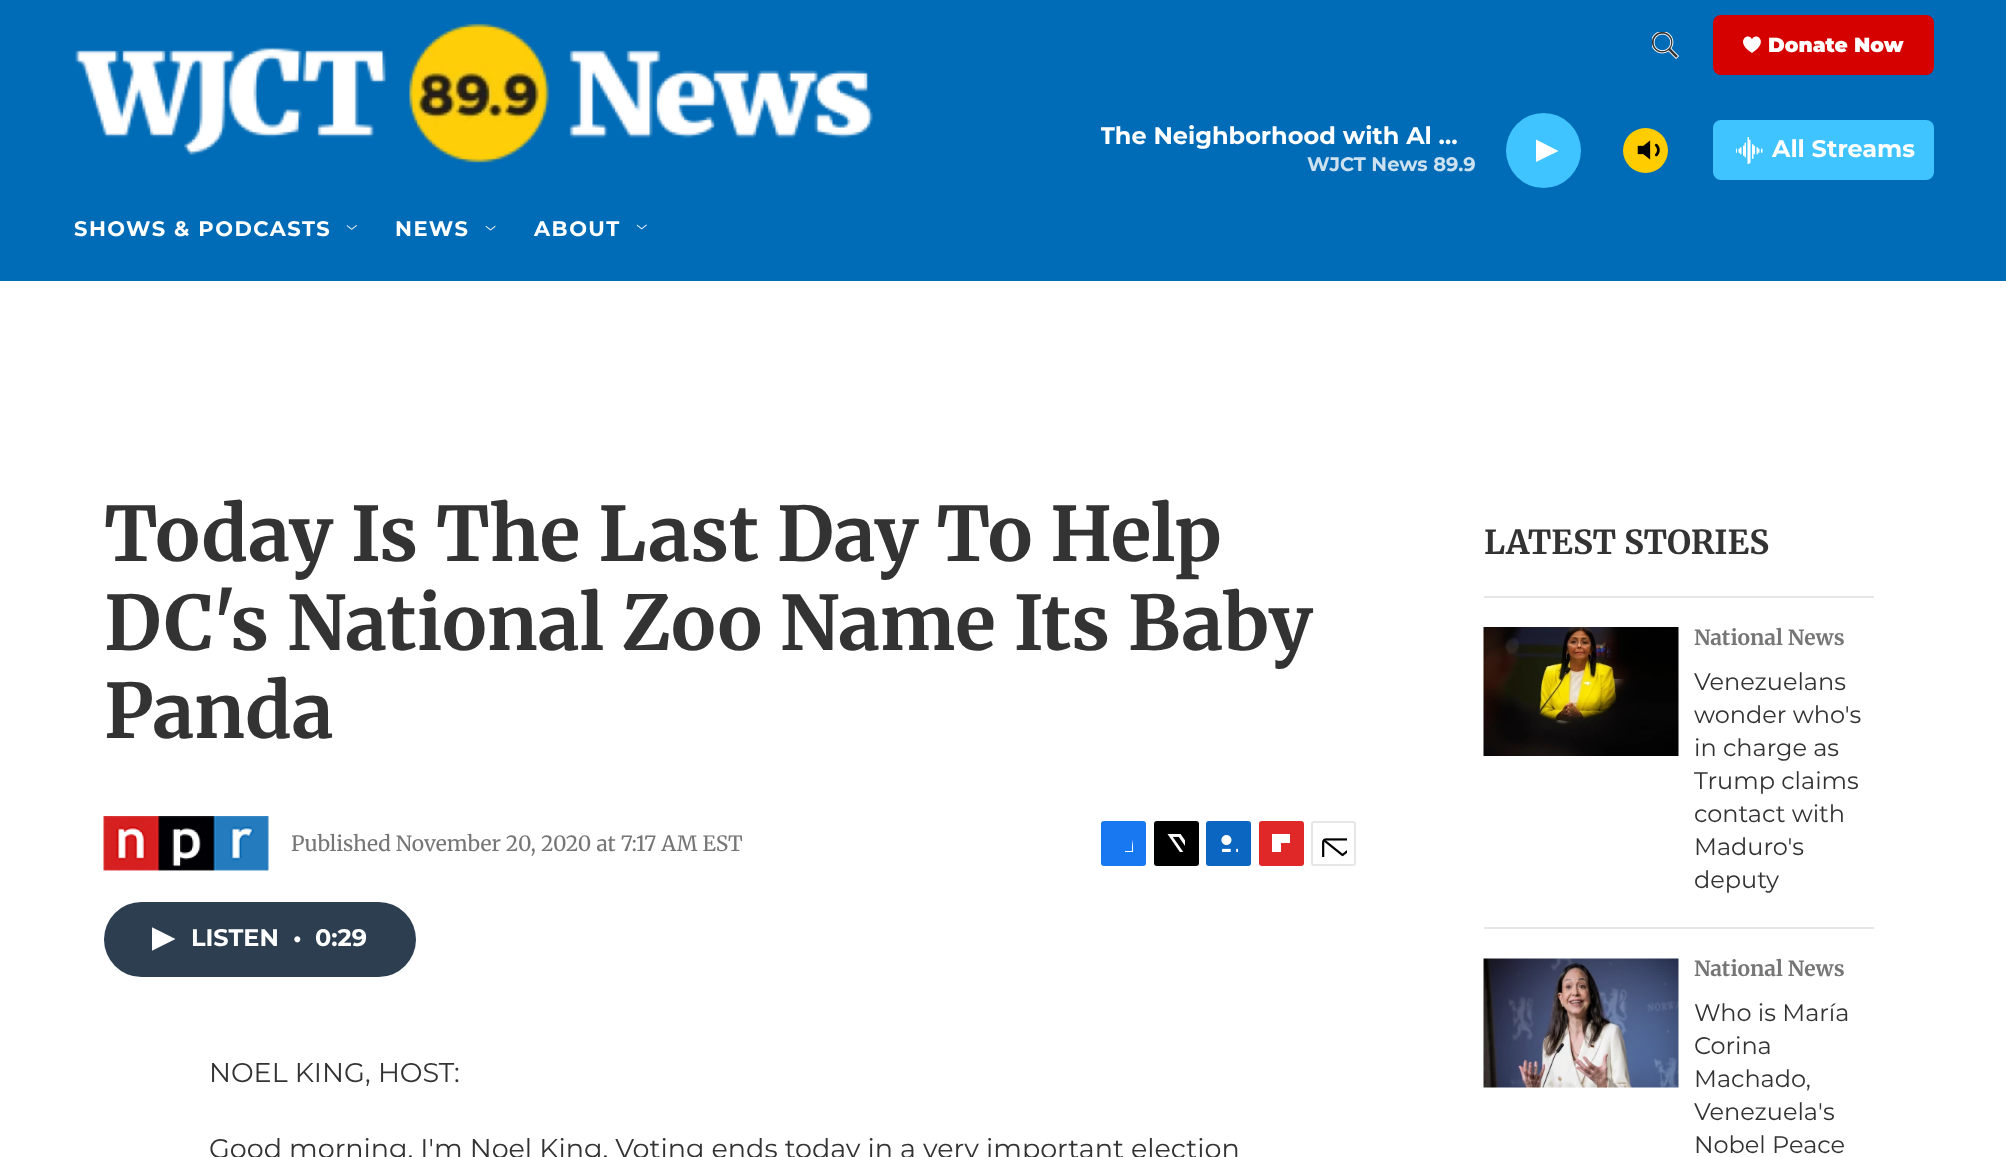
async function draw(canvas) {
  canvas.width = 2006;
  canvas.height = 1157;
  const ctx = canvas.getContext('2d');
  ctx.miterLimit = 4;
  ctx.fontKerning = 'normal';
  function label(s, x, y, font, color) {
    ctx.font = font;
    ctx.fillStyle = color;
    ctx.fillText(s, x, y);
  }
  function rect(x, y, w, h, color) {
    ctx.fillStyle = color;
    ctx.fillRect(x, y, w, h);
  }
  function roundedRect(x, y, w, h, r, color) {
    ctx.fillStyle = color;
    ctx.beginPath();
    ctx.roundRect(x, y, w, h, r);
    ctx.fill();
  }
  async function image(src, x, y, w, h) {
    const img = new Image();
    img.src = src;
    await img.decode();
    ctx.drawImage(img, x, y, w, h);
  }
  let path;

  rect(0, 0, 2006, 1157, '#fff');
  rect(0, 0, 2006, 281, '#006bb6');
  await image('assets/img1.png', 75, 23, 799, 140);
  await image('assets/img2.png', 1652, 32, 27, 27);
  roundedRect(1713, 15, 221, 60, 8, '#d50000');
  ctx.fillStyle = '#fff';
  path = new Path2D('M1752 39.5C1749 31.5 1733.5 41.5 1752 53C1770.5 41.5 1755 31.5 1752 39.5Z');
  ctx.fill(path);
  label('Donate Now', 1768, 52, '900 20.25px Montserrat', '#fff');
  ctx.save();
  ctx.beginPath();
  ctx.rect(1101, 123, 375, 27);
  ctx.clip();
  label('The Neighborhood with Al …', 1100, 144, 'bold 24px Montserrat', '#fff');
  ctx.restore();
  label('WJCT News 89.9', 1307, 171, 'bold 19.5px Montserrat', '#cce1f0');
  ctx.fillStyle = '#40c4ff';
  ctx.beginPath();
  ctx.arc(1543.5, 150.5, 37.5, 0, 2 * Math.PI);
  ctx.fill();
  ctx.fillStyle = '#fff';
  path = new Path2D('M1536 139.5L1558.5 151L1536 162Z');
  ctx.fill(path);
  ctx.fillStyle = '#fc0';
  ctx.beginPath();
  ctx.arc(1645.5, 150.5, 22.5, 0, 2 * Math.PI);
  ctx.fill();
  await image('assets/img3.png', 1637, 140, 23, 20);
  roundedRect(1713, 120, 221, 60, 8, '#40c4ff');
  await image('assets/img4.png', 1736, 137, 27, 27);
  label('All Streams', 1772, 157, 'bold 24px Montserrat', '#fff');
  ctx.letterSpacing = '1.5px';
  label('SHOWS & PODCASTS', 74, 236, 'bold 21px Montserrat', '#fff');
  await image('assets/img5.png', 346, 225, 11, 5);
  label('NEWS', 395, 236, 'bold 21px Montserrat', '#fff');
  await image('assets/img6.png', 485, 225, 11, 6);
  label('ABOUT', 534, 236, 'bold 21px Montserrat', '#fff');
  await image('assets/img7.png', 636, 224, 11, 6);
  ctx.letterSpacing = '0px';
  label('Today Is The Last Day To Help', 104, 561, 'bold 75px Merriweather', '#333');
  label('DC\'s National Zoo Name Its Baby', 104, 650, 'bold 75px Merriweather', '#333');
  label('Panda', 104, 738, 'bold 75px Merriweather', '#333');
  await image('assets/img8.png', 103, 816, 166, 56);
  label('Published November 20, 2020 at 7:17 AM EST', 291, 851, '21px Merriweather', '#767676');
  roundedRect(1101, 821, 45, 45, 3, '#1778f2');
  ctx.save();
  ctx.beginPath();
  ctx.rect(1115, 834, 18, 18);
  ctx.clip();
  ctx.fillStyle = '#fff';
  path = new Path2D('M1139 866H1132V858H1125V851H1132C1132 838.5 1133 833 1146 835V842C1137.5 842 1139 843.5 1139 851H1146L1145 858H1139Z');
  ctx.fill(path);
  ctx.restore();
  roundedRect(1154, 821, 45, 45, 3, '#000');
  await image('assets/img9.png', 1167, 834, 18, 18);
  roundedRect(1206, 821, 45, 45, 3, '#0a66c1');
  await image('assets/img10.png', 1221, 835, 17, 17);
  roundedRect(1259, 821, 45, 45, 3, '#e12828');
  ctx.save();
  ctx.beginPath();
  ctx.rect(1272, 834, 18, 18);
  ctx.clip();
  ctx.fillStyle = '#fff';
  path = new Path2D('M1272 834V866H1281V843H1304V834ZM1304 852H1299V861H1290V866C1306 866 1304 868 1304 852Z');
  ctx.fill(path, 'evenodd');
  ctx.restore();
  ctx.beginPath();
  ctx.roundRect(1312, 822, 43, 43, 2);
  ctx.strokeStyle = '#e6e6e6';
  ctx.lineWidth = 2;
  ctx.stroke();
  await image('assets/img11.png', 1322, 838, 25, 19);
  roundedRect(104, 902, 312, 75, 37.5, '#2c3e50');
  ctx.save();
  ctx.beginPath();
  ctx.rect(152, 927, 24, 24);
  ctx.clip();
  ctx.fillStyle = '#fff';
  path = new Path2D('M151.5 927L175.5 939L151.5 951Z');
  ctx.fill(path);
  ctx.restore();
  label('LISTEN', 191, 946, 'bold 24px Montserrat', '#fff');
  label('•', 293, 946, 'bold 24px Montserrat', '#fff');
  label('0:29', 315, 946, 'bold 24px Montserrat', '#fff');
  label('NOEL KING, HOST:', 209, 1082, '27px Montserrat', '#333');
  label('Good morning. I\'m Noel King. Voting ends today in a very important election', 209, 1158, '27px Montserrat', '#333');
  rect(1484, 596, 390, 2, '#e6e6e6');
  label('LATEST STORIES', 1484, 554, 'bold 33px Merriweather', '#333');
  rect(1484, 927, 390, 2, '#e6e6e6');
  await image('assets/img12.png', 1483, 627, 196, 129);
  label('National News', 1694, 645, 'bold 21px Merriweather', '#767676');
  label('Venezuelans', 1694, 690, '24px Montserrat', '#333');
  label('wonder who\'s', 1694, 723, '24px Montserrat', '#333');
  label('in charge as', 1694, 756, '24px Montserrat', '#333');
  label('Trump claims', 1694, 789, '24px Montserrat', '#333');
  label('contact with', 1694, 822, '24px Montserrat', '#333');
  label('Maduro\'s', 1694, 855, '24px Montserrat', '#333');
  label('deputy', 1694, 888, '24px Montserrat', '#333');
  await image('assets/img13.png', 1483, 958, 196, 130);
  label('National News', 1694, 976, 'bold 21px Merriweather', '#767676');
  label('Who is María', 1694, 1021, '24px Montserrat', '#333');
  label('Corina', 1694, 1054, '24px Montserrat', '#333');
  label('Machado,', 1694, 1087, '24px Montserrat', '#333');
  label('Venezuela\'s', 1694, 1120, '24px Montserrat', '#333');
  label('Nobel Peace', 1694, 1153, '24px Montserrat', '#333');
}

draw(document.querySelector('canvas'));
